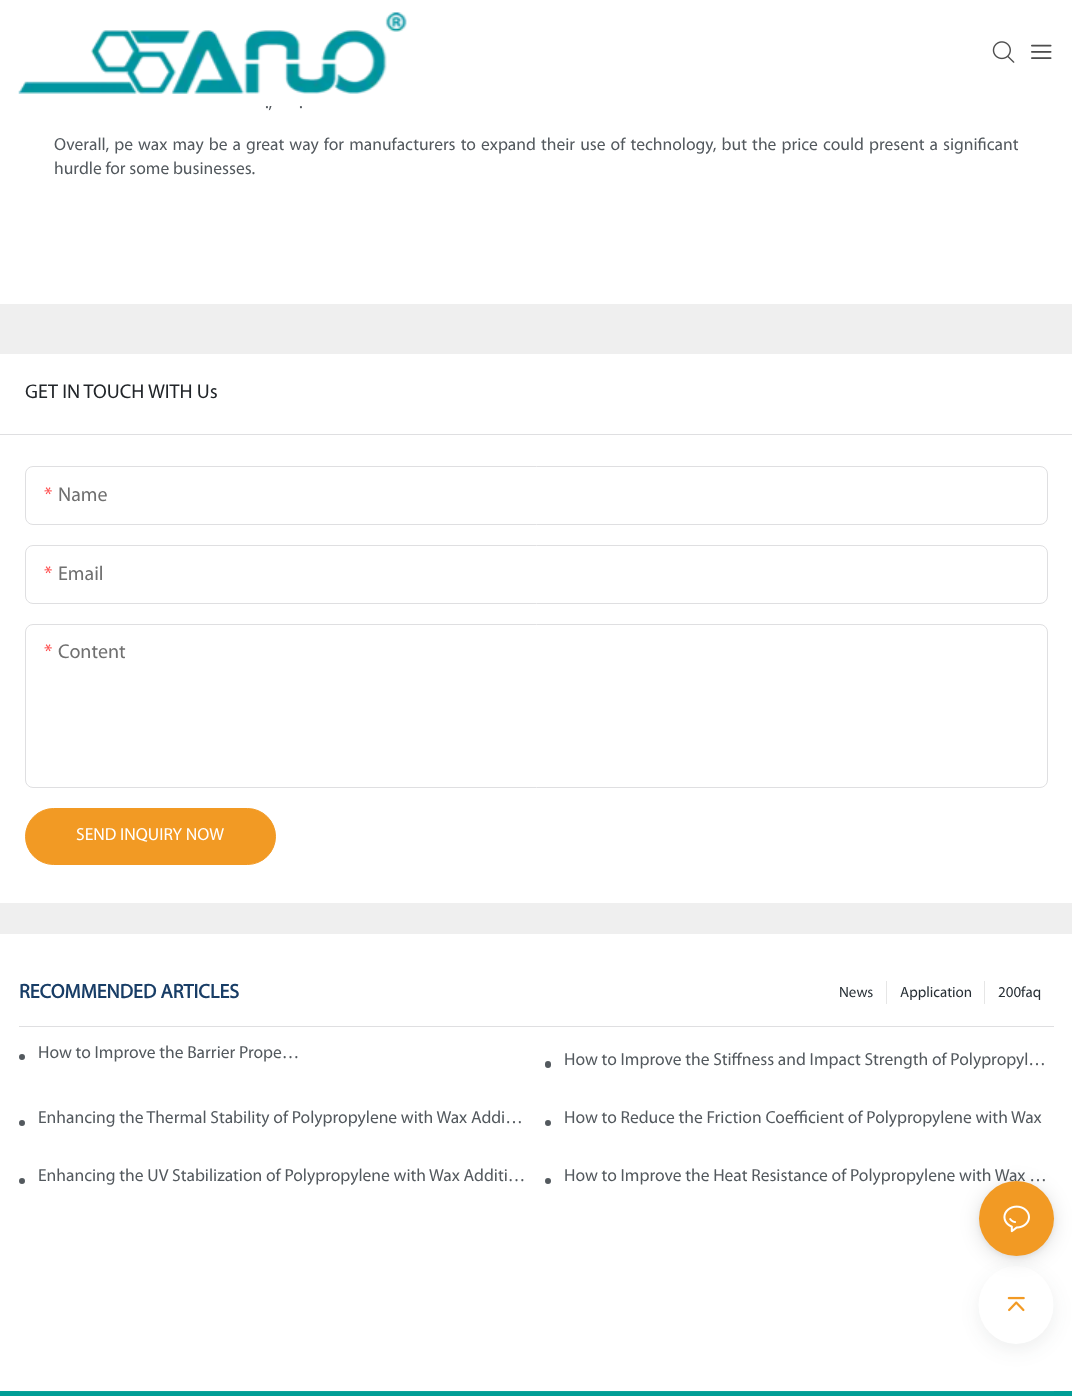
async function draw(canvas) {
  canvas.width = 1072;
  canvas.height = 1396;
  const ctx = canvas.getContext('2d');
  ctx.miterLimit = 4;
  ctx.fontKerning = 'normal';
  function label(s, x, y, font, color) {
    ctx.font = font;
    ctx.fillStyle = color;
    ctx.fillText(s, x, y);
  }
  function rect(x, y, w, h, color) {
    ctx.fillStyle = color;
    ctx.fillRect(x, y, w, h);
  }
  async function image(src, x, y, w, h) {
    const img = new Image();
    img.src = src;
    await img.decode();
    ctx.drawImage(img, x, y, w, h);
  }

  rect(0, 0, 1072, 1396, '#fff');
  label('.,', 265, 108, '17.5px Myriad', '#53595e');
  rect(270, 105, 2, 1, '#fff');
  await image('assets/img1.png', 18, 12, 389, 82);
  await image('assets/img2.png', 992, 41, 23, 22);
  await image('assets/img3.png', 1031, 44, 21, 15);
  rect(0, 304, 1072, 630, '#efefef');
  label('.', 299, 108, '17.5px Myriad', '#53595e');
  ctx.wordSpacing = '1.4px';
  label('Overall, pe wax may be a great way for manufacturers to expand their use of technology, but the price could present a significant', 54, 150, '17.5px Myriad', '#53595e');
  ctx.wordSpacing = '0px';
  label('hurdle for some businesses.', 54, 174, '17.5px Myriad', '#53595e');
  rect(0, 354, 1072, 549, '#fff');
  rect(0, 434, 1072, 1, '#dfdfe1');
  label('GET IN TOUCH WITH Us', 25, 398, '20px Myriad', '#212529');
  ctx.beginPath();
  ctx.roundRect(25.5, 466.5, 1022, 58, 7.5);
  ctx.strokeStyle = '#dfdfe1';
  ctx.stroke();
  label('*', 44, 501, '20px Myriad', '#ff4d4d');
  label('Name', 58, 501, '20px Myriad', '#707070');
  ctx.beginPath();
  ctx.roundRect(25.5, 545.5, 1022, 58, 7.5);
  ctx.stroke();
  label('*', 44, 580, '20px Myriad', '#ff4d4d');
  label('Email', 58, 580, '20px Myriad', '#707070');
  ctx.beginPath();
  ctx.roundRect(25.5, 624.5, 1022, 163, 7.5);
  ctx.stroke();
  label('*', 44, 658, '20px Myriad', '#ff4d4d');
  label('Content', 58, 658, '20px Myriad', '#707070');
  ctx.fillStyle = '#f29a24';
  ctx.beginPath();
  ctx.roundRect(25.5, 808.5, 250, 56, 28);
  ctx.fill();
  ctx.strokeStyle = '#f29a24';
  ctx.stroke();
  label('SEND INQUIRY NOW', 76, 840, '17.5px Myriad', '#fff');
  rect(19, 1026, 1035, 1, '#dfdfe1');
  label('RECOMMENDED ARTICLES', 19, 998, 'bold 20px Myriad', '#183d66');
  label('News', 839, 997, '15px Myriad', '#283036');
  rect(886, 981, 1, 23, '#e6e6e6');
  label('Application', 900, 997, '15px Myriad', '#283036');
  rect(984, 981, 1, 23, '#e6e6e6');
  label('200faq', 998, 997, '15px Myriad', '#283036');
  ctx.beginPath();
  ctx.arc(22, 1057, 1.5, 0, 2 * Math.PI);
  ctx.strokeStyle = '#53595e';
  ctx.lineWidth = 3;
  ctx.stroke();
  label('How to Improve the Barrier Prope…', 38, 1058, '17.5px Myriad', '#53595e');
  ctx.beginPath();
  ctx.roundRect(546.5, 1062.5, 3, 4, 1.5);
  ctx.stroke();
  label('How to Improve the Stiffness and Impact Strength of Polypropyl…', 564, 1065, '17.5px Myriad', '#53595e');
  ctx.beginPath();
  ctx.arc(22, 1123, 1.5, 0, 2 * Math.PI);
  ctx.stroke();
  label('Enhancing the Thermal Stability of Polypropylene with Wax Addi…', 38, 1123, '17.5px Myriad', '#53595e');
  ctx.beginPath();
  ctx.arc(548, 1123, 1.5, 0, 2 * Math.PI);
  ctx.stroke();
  label('How to Reduce the Friction Coefficient of Polypropylene with Wax', 564, 1123, '17.5px Myriad', '#53595e');
  ctx.beginPath();
  ctx.arc(22, 1181, 1.5, 0, 2 * Math.PI);
  ctx.stroke();
  label('Enhancing the UV Stabilization of Polypropylene with Wax Additi…', 38, 1181, '17.5px Myriad', '#53595e');
  ctx.beginPath();
  ctx.arc(548, 1181, 1.5, 0, 2 * Math.PI);
  ctx.stroke();
  label('How to Improve the Heat Resistance of Polypropylene with Wax …', 564, 1181, '17.5px Myriad', '#53595e');
  rect(0, 1391, 1072, 5, '#009e96');
  rect(19, 1391, 1035, 1, '#0da39b');
  ctx.fillStyle = '#282f3614';
  ctx.filter = 'blur(9.5px)';
  ctx.beginPath();
  ctx.roundRect(979, 1273, 75, 77, 37.5);
  ctx.fill();
  ctx.filter = 'none';
  ctx.fillStyle = '#fff';
  ctx.beginPath();
  ctx.ellipse(1016, 1305, 37.5, 39, 0, 0, 2 * Math.PI);
  ctx.fill();
  ctx.fillStyle = '#0000001f';
  ctx.filter = 'blur(10px)';
  ctx.beginPath();
  ctx.roundRect(979, 1184, 75, 75, 37.5);
  ctx.fill();
  ctx.filter = 'none';
  ctx.fillStyle = '#0000000f';
  ctx.filter = 'blur(2.5px)';
  ctx.beginPath();
  ctx.roundRect(979, 1183, 75, 75, 37.5);
  ctx.fill();
  ctx.filter = 'none';
  ctx.fillStyle = '#f29a24';
  ctx.beginPath();
  ctx.arc(1016.5, 1218.5, 37.5, 0, 2 * Math.PI);
  ctx.fill();
  await image('assets/img4.png', 1003, 1205, 27, 28);
  await image('assets/img5.png', 1007, 1296, 18, 16);
}

draw(document.querySelector('canvas'));
